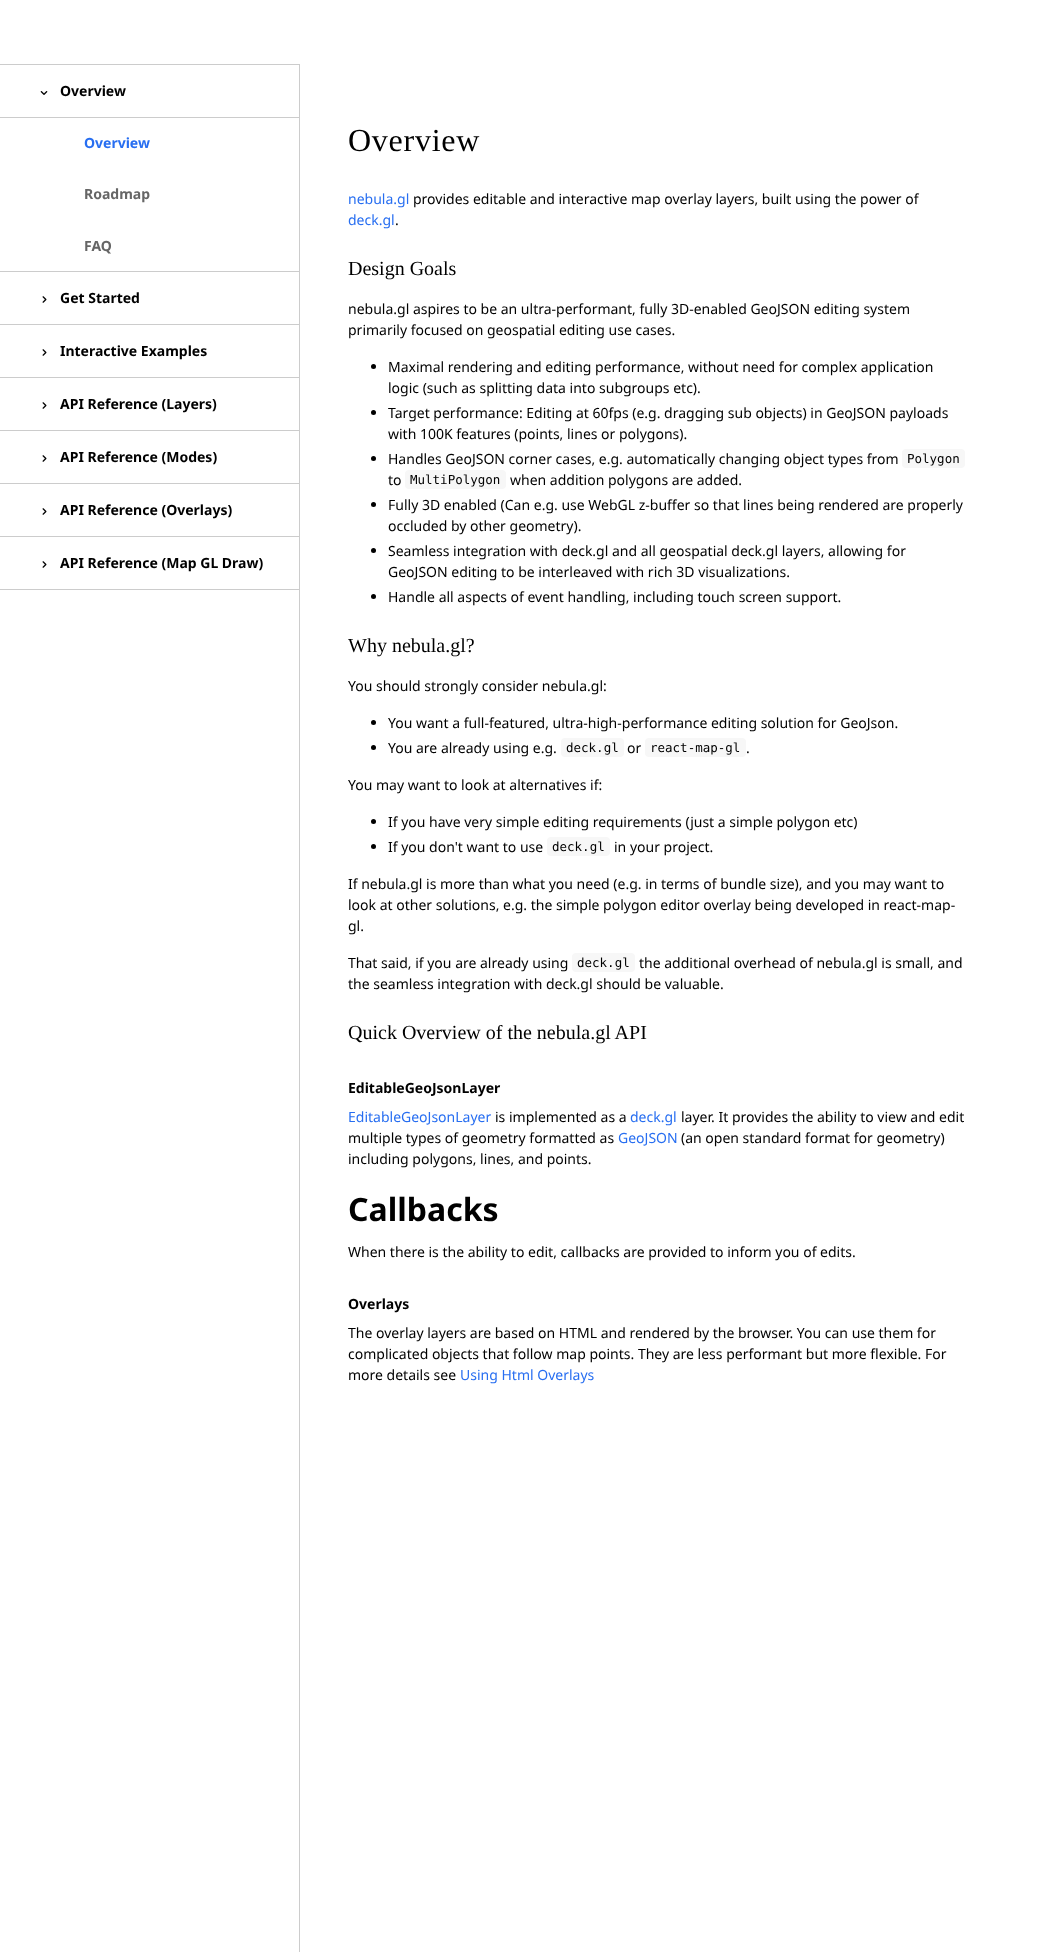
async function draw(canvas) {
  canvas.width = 1057;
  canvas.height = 1952;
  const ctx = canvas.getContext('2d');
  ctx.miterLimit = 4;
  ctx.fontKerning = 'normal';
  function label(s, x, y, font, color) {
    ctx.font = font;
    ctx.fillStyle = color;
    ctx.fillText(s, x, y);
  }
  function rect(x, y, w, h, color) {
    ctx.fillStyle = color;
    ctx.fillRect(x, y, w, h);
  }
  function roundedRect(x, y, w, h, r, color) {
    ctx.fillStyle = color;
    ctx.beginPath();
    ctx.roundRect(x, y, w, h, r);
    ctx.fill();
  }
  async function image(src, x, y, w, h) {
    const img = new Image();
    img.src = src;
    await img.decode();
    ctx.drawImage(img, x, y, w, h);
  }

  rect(0, 0, 1057, 1952, '#fff');
  rect(299, 64, 1, 1888, '#ccc');
  rect(0, 64, 299, 1, '#ccc');
  rect(0, 117, 299, 1, '#ccc');
  await image('assets/img1.png', 40, 91, 8, 4);
  label('Overview', 60, 96, 'bold 14px Noto Sans', '#000');
  label('Overview', 84, 148, 'bold 14px Noto Sans', '#276ef1');
  label('Roadmap', 84, 199, 'bold 14px Noto Sans', '#666');
  label('FAQ', 84, 251, 'bold 14px Noto Sans', '#666');
  rect(0, 271, 299, 1, '#ccc');
  rect(0, 324, 299, 1, '#ccc');
  await image('assets/img2.png', 42, 296, 5, 7);
  label('Get Started', 60, 303, 'bold 14px Noto Sans', '#000');
  rect(0, 377, 299, 1, '#ccc');
  await image('assets/img2.png', 42, 349, 5, 7);
  label('Interactive Examples', 60, 356, 'bold 14px Noto Sans', '#000');
  rect(0, 430, 299, 1, '#ccc');
  await image('assets/img2.png', 42, 402, 5, 7);
  label('API Reference (Layers)', 60, 409, 'bold 14px Noto Sans', '#000');
  rect(0, 483, 299, 1, '#ccc');
  await image('assets/img2.png', 42, 455, 5, 7);
  label('API Reference (Modes)', 60, 462, 'bold 14px Noto Sans', '#000');
  rect(0, 536, 299, 1, '#ccc');
  await image('assets/img2.png', 42, 508, 5, 7);
  label('API Reference (Overlays)', 60, 515, 'bold 14px Noto Sans', '#000');
  rect(0, 589, 299, 1, '#ccc');
  await image('assets/img2.png', 42, 561, 5, 7);
  label('API Reference (Map GL Draw)', 60, 568, 'bold 14px Noto Sans', '#000');
  ctx.letterSpacing = '0.75px';
  label('Overview', 348, 151, '32px Liberation Serif', '#000');
  ctx.letterSpacing = '0px';
  label('nebula.gl', 348, 204, '14px Noto Sans', '#276ef1');
  label('provides editable and interactive map overlay layers, built using the power of', 413, 204, '14px Noto Sans', '#000');
  label('deck.gl', 348, 225, '14px Noto Sans', '#276ef1');
  label('.', 395, 225, '14px Noto Sans', '#000');
  label('Design Goals', 348, 275, '20px Liberation Serif', '#000');
  label('nebula.gl aspires to be an ultra-performant, fully 3D-enabled GeoJSON editing system', 348, 314, '14px Noto Sans', '#000');
  label('primarily focused on geospatial editing use cases.', 348, 335, '14px Noto Sans', '#000');
  ctx.beginPath();
  ctx.arc(373.5, 366.5, 2.5, 0, 2 * Math.PI);
  ctx.fill();
  label('Maximal rendering and editing performance, without need for complex application', 388, 372, '14px Noto Sans', '#000');
  label('logic (such as splitting data into subgroups etc).', 388, 393, '14px Noto Sans', '#000');
  ctx.beginPath();
  ctx.arc(373.5, 412.5, 2.5, 0, 2 * Math.PI);
  ctx.fill();
  label('Target performance: Editing at 60fps (e.g. dragging sub objects) in GeoJSON payloads', 388, 418, '14px Noto Sans', '#000');
  label('with 100K features (points, lines or polygons).', 388, 439, '14px Noto Sans', '#000');
  ctx.beginPath();
  ctx.arc(373.5, 458.5, 2.5, 0, 2 * Math.PI);
  ctx.fill();
  label('Handles GeoJSON corner cases, e.g. automatically changing object types from', 388, 464, '14px Noto Sans', '#000');
  roundedRect(902, 449, 63, 19, 4, '#f7f7f7');
  label('Polygon', 907, 463, '12.5px DejaVu Sans Mono', '#000');
  label('to', 388, 485, '14px Noto Sans', '#000');
  roundedRect(405, 470, 101, 19, 4, '#f7f7f7');
  label('MultiPolygon', 410, 484, '12.5px DejaVu Sans Mono', '#000');
  label('when addition polygons are added.', 510, 485, '14px Noto Sans', '#000');
  ctx.beginPath();
  ctx.arc(373.5, 504.5, 2.5, 0, 2 * Math.PI);
  ctx.fill();
  label('Fully 3D enabled (Can e.g. use WebGL z-buffer so that lines being rendered are properly', 388, 510, '14px Noto Sans', '#000');
  label('occluded by other geometry).', 388, 531, '14px Noto Sans', '#000');
  ctx.beginPath();
  ctx.arc(373.5, 550.5, 2.5, 0, 2 * Math.PI);
  ctx.fill();
  label('Seamless integration with deck.gl and all geospatial deck.gl layers, allowing for', 388, 556, '14px Noto Sans', '#000');
  label('GeoJSON editing to be interleaved with rich 3D visualizations.', 388, 577, '14px Noto Sans', '#000');
  ctx.beginPath();
  ctx.arc(373.5, 596.5, 2.5, 0, 2 * Math.PI);
  ctx.fill();
  label('Handle all aspects of event handling, including touch screen support.', 388, 602, '14px Noto Sans', '#000');
  label('Why nebula.gl?', 348, 652, '20px Liberation Serif', '#000');
  label('You should strongly consider nebula.gl:', 348, 691, '14px Noto Sans', '#000');
  ctx.beginPath();
  ctx.arc(373.5, 722.5, 2.5, 0, 2 * Math.PI);
  ctx.fill();
  label('You want a full-featured, ultra-high-performance editing solution for GeoJson.', 388, 728, '14px Noto Sans', '#000');
  ctx.beginPath();
  ctx.arc(373.5, 747.5, 2.5, 0, 2 * Math.PI);
  ctx.fill();
  label('You are already using e.g.', 388, 753, '14px Noto Sans', '#000');
  roundedRect(561, 738, 63, 19, 4, '#f7f7f7');
  label('deck.gl', 566, 752, '12.5px DejaVu Sans Mono', '#000');
  label('or', 627, 753, '14px Noto Sans', '#000');
  roundedRect(645, 738, 101, 19, 4, '#f7f7f7');
  label('react-map-gl', 650, 752, '12.5px DejaVu Sans Mono', '#000');
  label('.', 746, 753, '14px Noto Sans', '#000');
  label('You may want to look at alternatives if:', 348, 790, '14px Noto Sans', '#000');
  ctx.beginPath();
  ctx.arc(373.5, 821.5, 2.5, 0, 2 * Math.PI);
  ctx.fill();
  label('If you have very simple editing requirements (just a simple polygon etc)', 388, 827, '14px Noto Sans', '#000');
  ctx.beginPath();
  ctx.arc(373.5, 846.5, 2.5, 0, 2 * Math.PI);
  ctx.fill();
  label('If you don\'t want to use', 388, 852, '14px Noto Sans', '#000');
  roundedRect(547, 837, 63, 19, 4, '#f7f7f7');
  label('deck.gl', 552, 851, '12.5px DejaVu Sans Mono', '#000');
  label('in your project.', 614, 852, '14px Noto Sans', '#000');
  label('If nebula.gl is more than what you need (e.g. in terms of bundle size), and you may want to', 348, 889, '14px Noto Sans', '#000');
  label('look at other solutions, e.g. the simple polygon editor overlay being developed in react-map-', 348, 910, '14px Noto Sans', '#000');
  label('gl.', 348, 931, '14px Noto Sans', '#000');
  label('That said, if you are already using', 348, 968, '14px Noto Sans', '#000');
  roundedRect(572, 953, 63, 19, 4, '#f7f7f7');
  label('deck.gl', 577, 967, '12.5px DejaVu Sans Mono', '#000');
  label('the additional overhead of nebula.gl is small, and', 639, 968, '14px Noto Sans', '#000');
  label('the seamless integration with deck.gl should be valuable.', 348, 989, '14px Noto Sans', '#000');
  label('Quick Overview of the nebula.gl API', 348, 1039, '20px Liberation Serif', '#000');
  label('EditableGeoJsonLayer', 348, 1093, 'bold 14px Noto Sans', '#000');
  label('EditableGeoJsonLayer', 348, 1122, '14px Noto Sans', '#276ef1');
  label('is implemented as a', 495, 1122, '14px Noto Sans', '#000');
  label('deck.gl', 630, 1122, '14px Noto Sans', '#276ef1');
  label('layer. It provides the ability to view and edit', 681, 1122, '14px Noto Sans', '#000');
  label('multiple types of geometry formatted as', 348, 1143, '14px Noto Sans', '#000');
  label('GeoJSON', 618, 1143, '14px Noto Sans', '#276ef1');
  label('(an open standard format for geometry)', 681, 1143, '14px Noto Sans', '#000');
  label('including polygons, lines, and points.', 348, 1164, '14px Noto Sans', '#000');
  label('Callbacks', 348, 1221, 'bold 32px Noto Sans', '#000');
  label('When there is the ability to edit, callbacks are provided to inform you of edits.', 348, 1257, '14px Noto Sans', '#000');
  label('Overlays', 348, 1309, 'bold 14px Noto Sans', '#000');
  label('The overlay layers are based on HTML and rendered by the browser. You can use them for', 348, 1338, '14px Noto Sans', '#000');
  label('complicated objects that follow map points. They are less performant but more flexible. For', 348, 1359, '14px Noto Sans', '#000');
  label('more details see', 348, 1380, '14px Noto Sans', '#000');
  label('Using Html Overlays', 460, 1380, '14px Noto Sans', '#276ef1');
}

draw(document.querySelector('canvas'));
